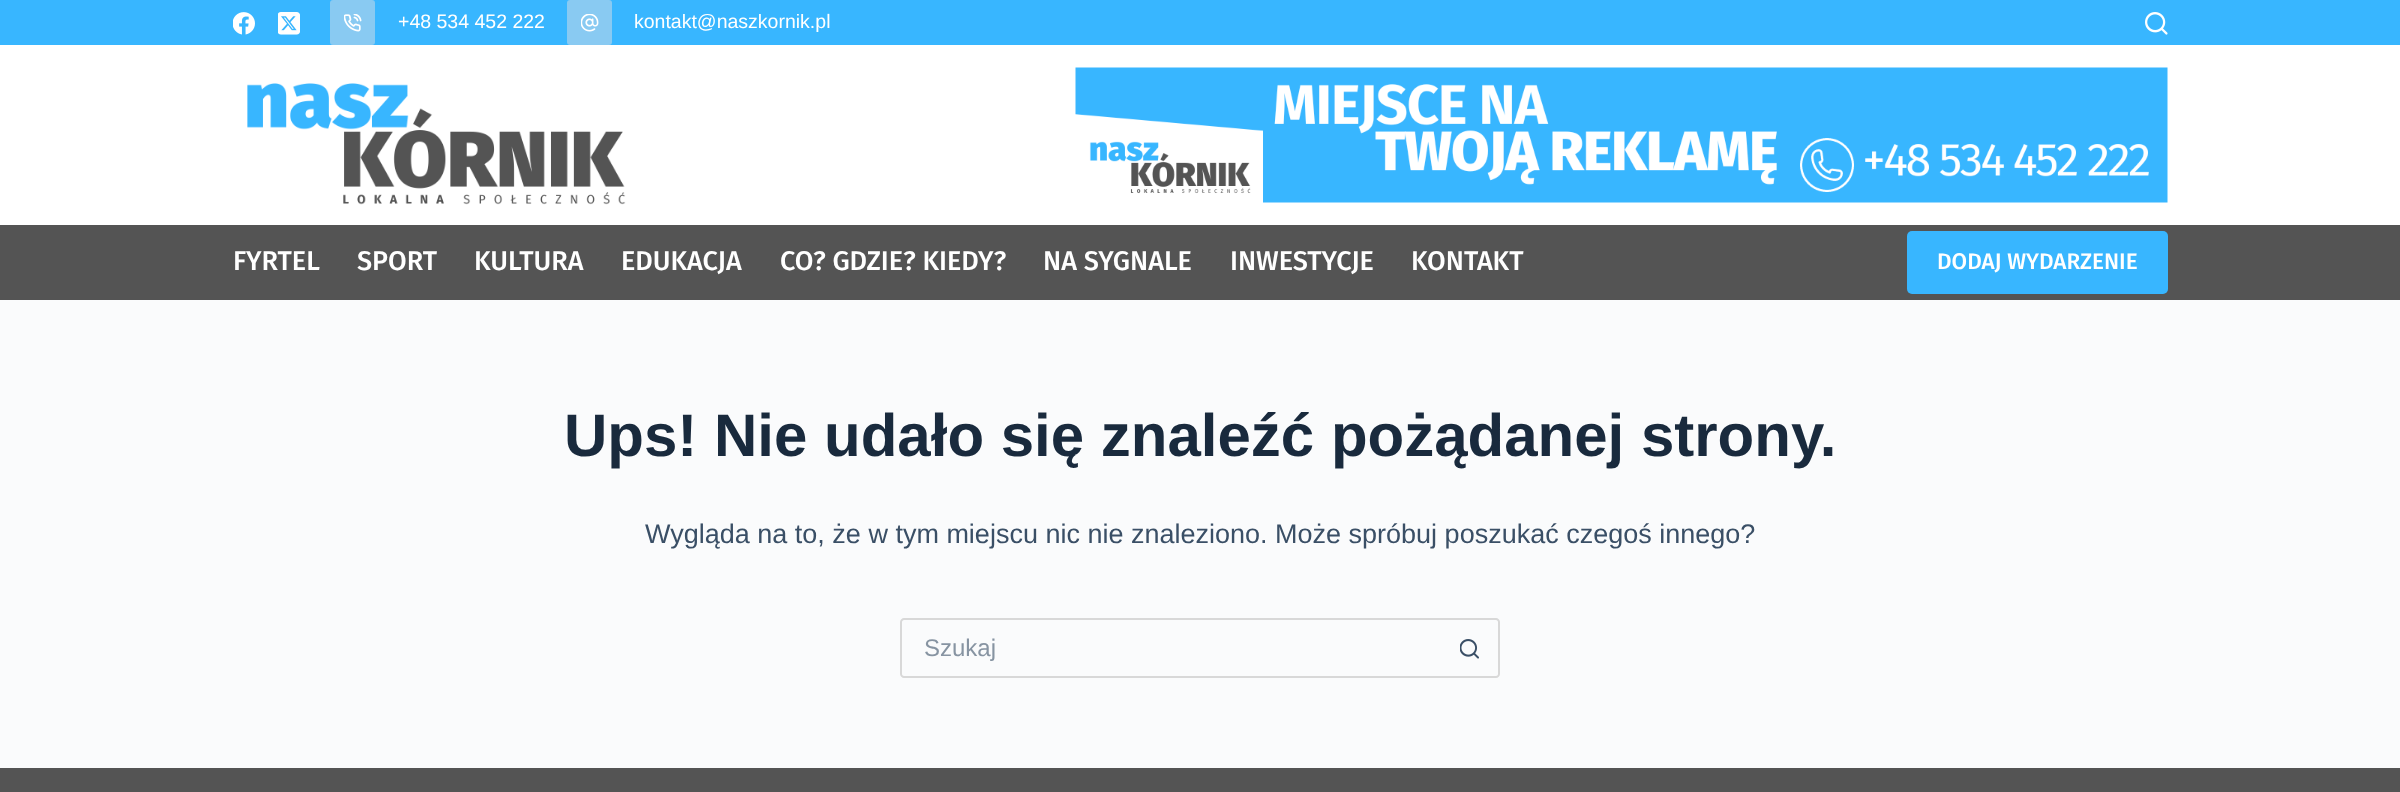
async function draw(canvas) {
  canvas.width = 2400;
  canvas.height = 792;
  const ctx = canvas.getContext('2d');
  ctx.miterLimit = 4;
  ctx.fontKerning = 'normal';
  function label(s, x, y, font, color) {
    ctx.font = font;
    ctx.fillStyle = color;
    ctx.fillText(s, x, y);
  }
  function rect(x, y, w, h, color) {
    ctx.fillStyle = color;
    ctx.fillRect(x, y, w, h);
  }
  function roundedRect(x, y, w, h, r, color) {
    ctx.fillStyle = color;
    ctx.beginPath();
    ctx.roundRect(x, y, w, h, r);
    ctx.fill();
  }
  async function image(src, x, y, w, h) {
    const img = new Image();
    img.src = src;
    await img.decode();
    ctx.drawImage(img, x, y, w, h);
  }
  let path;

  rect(0, 0, 2400, 792, '#fafbfc');
  rect(0, 0, 2400, 45, '#38b6ff');
  await image('assets/img1.png', 233, 12, 22, 23);
  await image('assets/img2.png', 278, 12, 22, 23);
  roundedRect(330, 0, 45, 45, 3, '#89caf2');
  await image('assets/img3.png', 344, 14, 18, 18);
  label('+48 534 452 222', 398, 28, '19.5px Liberation Sans', '#fff');
  roundedRect(567, 0, 45, 45, 3, '#89caf2');
  await image('assets/img4.png', 581, 14, 18, 18);
  label('kontakt@naszkornik.pl', 634, 28, '19.5px Liberation Sans', '#fff');
  await image('assets/img5.png', 2145, 12, 23, 23);
  rect(0, 45, 2400, 180, '#fff');
  await image('assets/img6.png', 247, 83, 379, 122);
  await image('assets/img7.png', 1075, 67, 1093, 136);
  rect(0, 225, 2400, 75, '#545454');
  label('FYRTEL', 233, 270, '500 27px Fira Sans', '#fff');
  label('SPORT', 357, 270, '500 27px Fira Sans', '#fff');
  label('KULTURA', 474, 270, '500 27px Fira Sans', '#fff');
  label('EDUKACJA', 621, 270, '500 27px Fira Sans', '#fff');
  label('CO? GDZIE? KIEDY?', 780, 270, '500 27px Fira Sans', '#fff');
  label('NA SYGNALE', 1043, 270, '500 27px Fira Sans', '#fff');
  label('INWESTYCJE', 1230, 270, '500 27px Fira Sans', '#fff');
  label('KONTAKT', 1411, 270, '500 27px Fira Sans', '#fff');
  roundedRect(1907, 231, 261, 63, 5, '#38b6ff');
  label('DODAJ WYDARZENIE', 1937, 269, '500 22.5px Fira Sans', '#fff');
  label('Ups! Nie udało się znaleźć pożądanej strony.', 564, 456, 'bold 60px Liberation Sans', '#192a3d');
  label('Wygląda na to, że w tym miejscu nic nie znaleziono. Może spróbuj poszukać czegoś innego?', 645, 543, '27px Liberation Sans', '#3a4f66');
  ctx.fillStyle = '#d8d8d8';
  path = new Path2D('M904 618H1440V678H904C902 678 900 676 900 674V622C900 620 902 618 904 618ZM904 620H1440V676H904C903 676 902 675 902 674V622C902 621 903 620 904 620Z');
  ctx.fill(path, 'evenodd');
  label('Szukaj', 924, 656, '24px Liberation Sans', '#8794a2');
  ctx.fillStyle = '#d8d8d8';
  path = new Path2D('M1440 618H1496C1498 618 1500 620 1500 622V674C1500 676 1498 678 1496 678H1440ZM1440 620H1496C1497 620 1498 621 1498 622V674C1498 675 1497 676 1496 676H1440Z');
  ctx.fill(path, 'evenodd');
  await image('assets/img8.png', 1460, 639, 19, 20);
  rect(0, 768, 2400, 24, '#545454');
}

draw(document.querySelector('canvas'));
